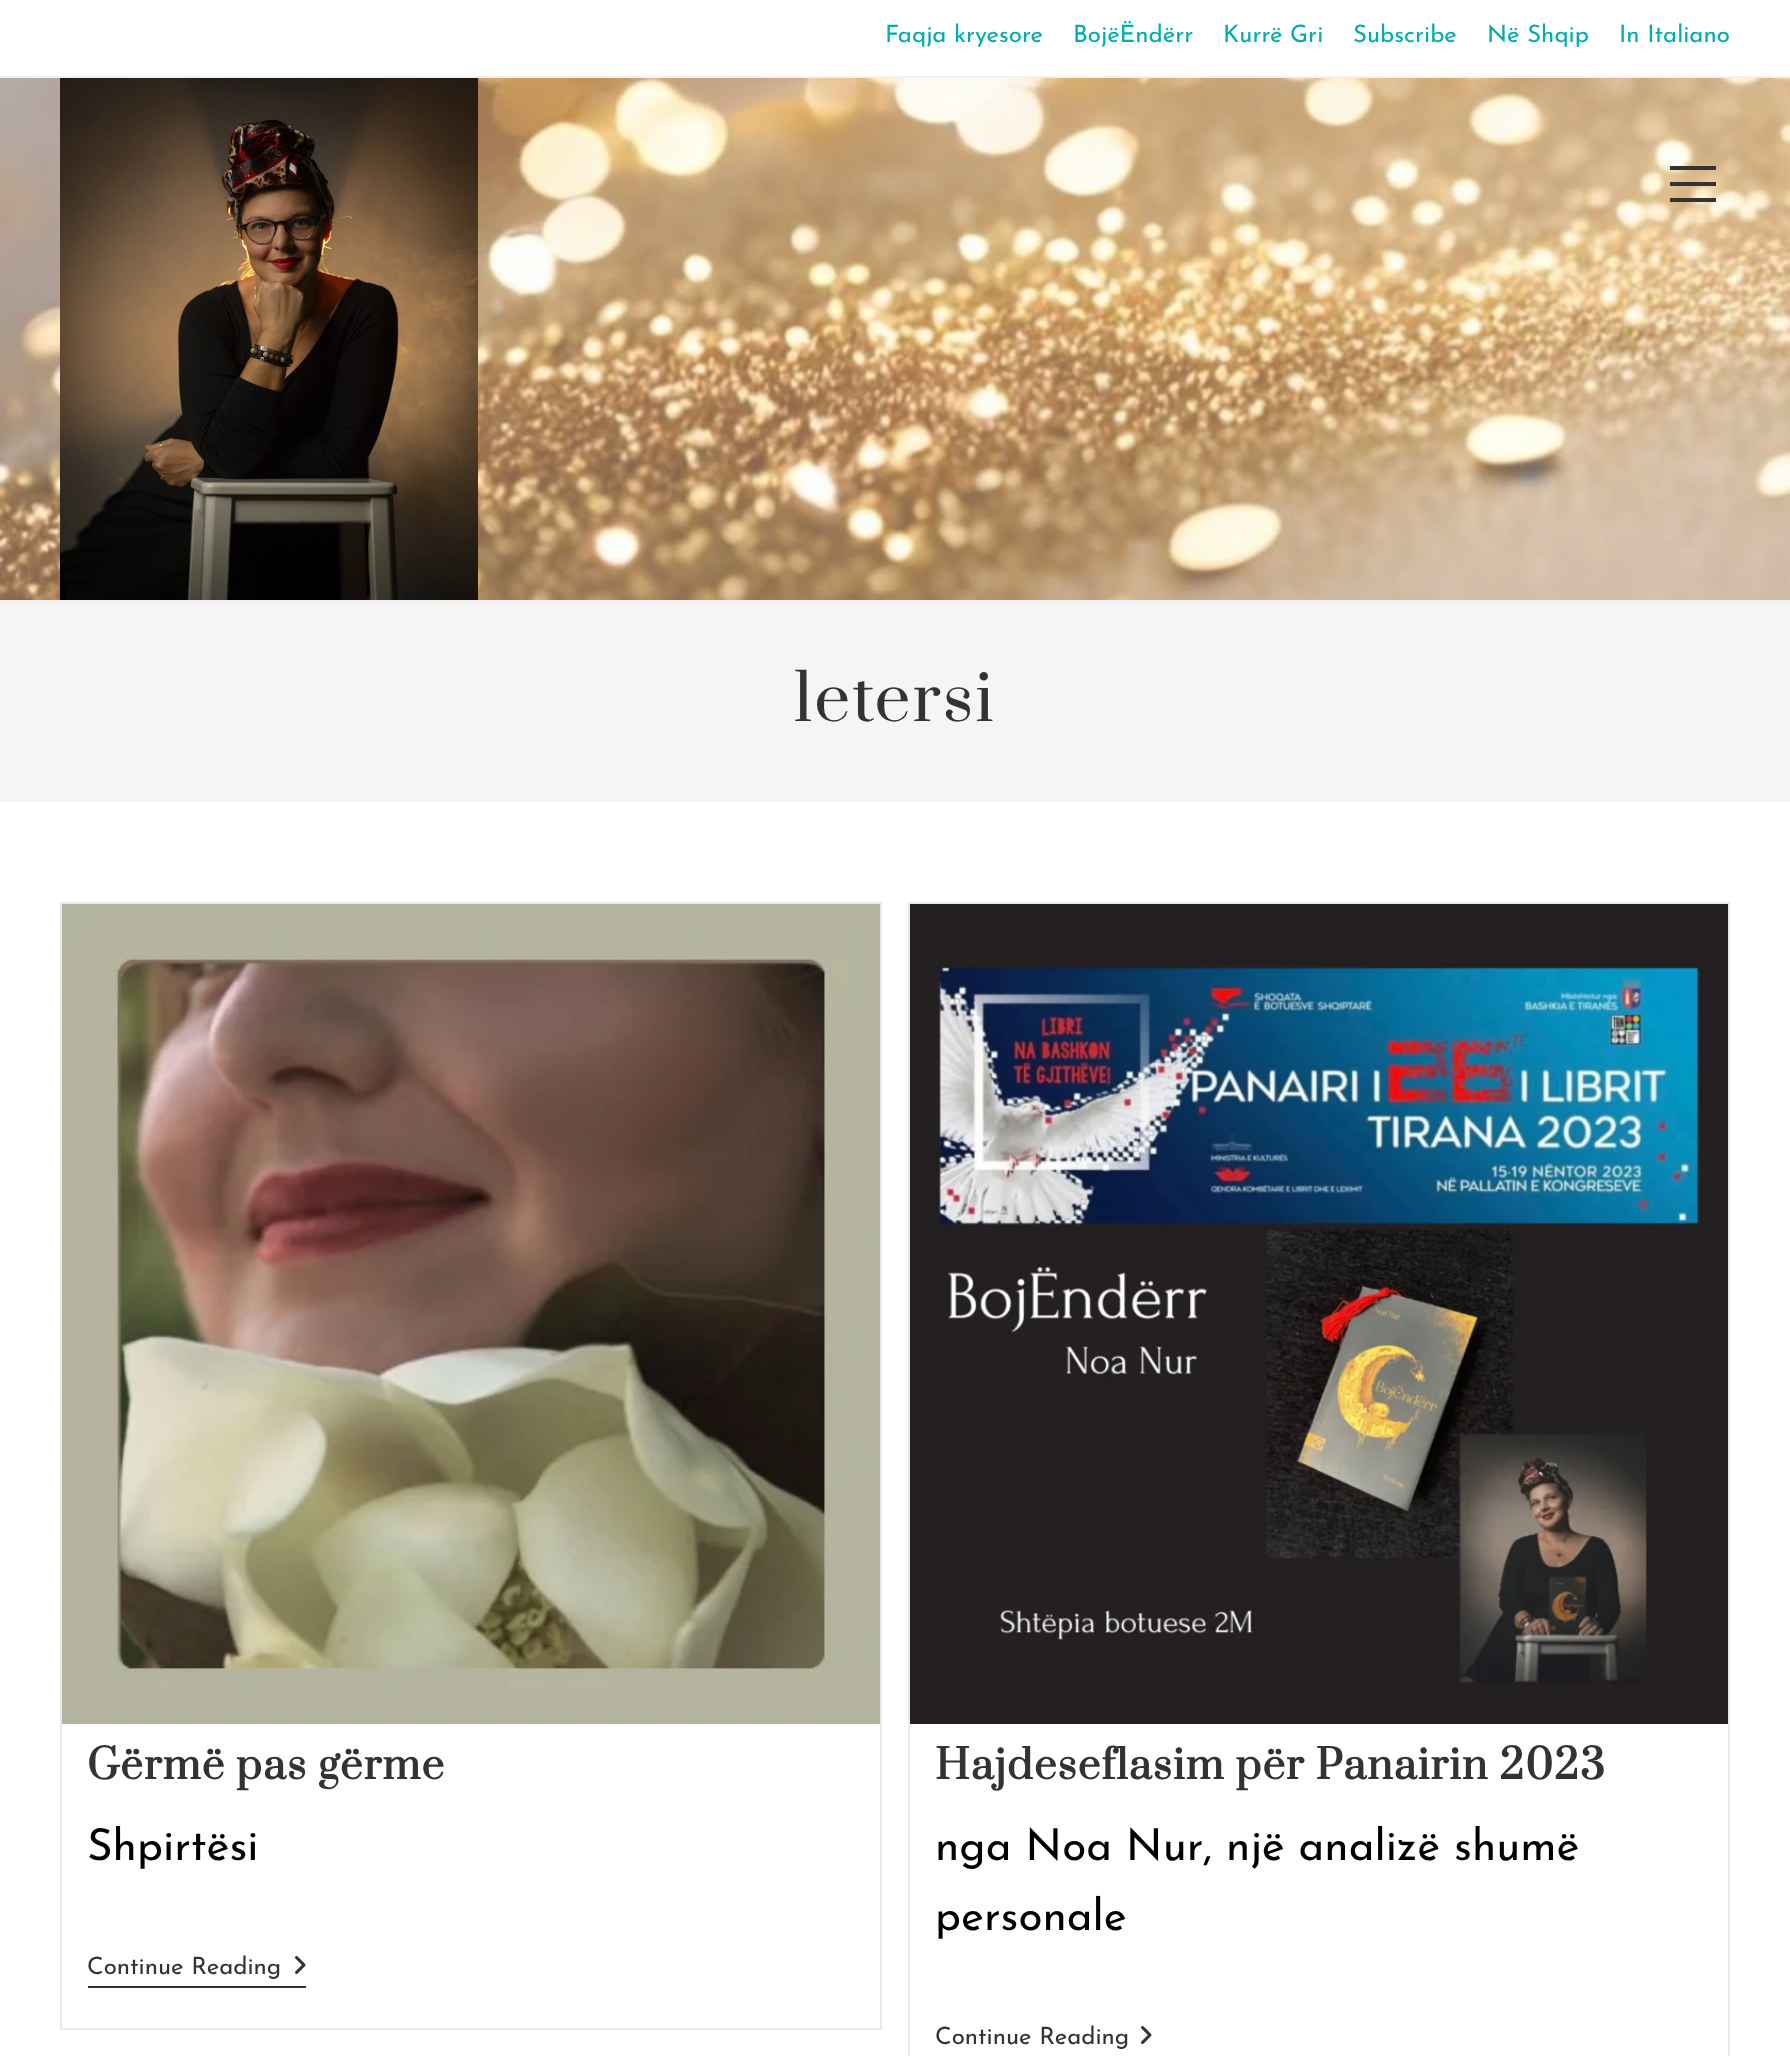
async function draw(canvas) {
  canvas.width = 1790;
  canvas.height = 2056;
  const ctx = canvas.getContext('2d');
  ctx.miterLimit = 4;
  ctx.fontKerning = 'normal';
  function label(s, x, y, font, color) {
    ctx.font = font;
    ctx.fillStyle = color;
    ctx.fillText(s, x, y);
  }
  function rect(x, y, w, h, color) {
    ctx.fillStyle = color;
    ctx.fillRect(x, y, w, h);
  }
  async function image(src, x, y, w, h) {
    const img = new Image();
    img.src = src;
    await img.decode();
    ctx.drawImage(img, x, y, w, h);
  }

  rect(0, 0, 1790, 2056, '#fff');
  rect(0, 76, 1790, 2, '#f1f1f1');
  label('Faqja kryesore', 885, 42, '24px Josefin Sans', '#01adaf');
  label('BojëËndërr', 1073, 42, '24px Josefin Sans', '#01adaf');
  label('Kurrë Gri', 1223, 42, '24px Josefin Sans', '#01adaf');
  label('Subscribe', 1353, 42, '24px Josefin Sans', '#01adaf');
  label('Në Shqip', 1487, 42, '24px Josefin Sans', '#01adaf');
  label('In Italiano', 1619, 42, '24px Josefin Sans', '#01adaf');
  await image('assets/img1.png', 0, 78, 1790, 522);
  rect(0, 600, 1790, 2, '#f1f1f1');
  await image('assets/img2.png', 60, 78, 418, 522);
  rect(1670, 182, 46, 4, '#333');
  rect(1670, 166, 46, 4, '#333');
  rect(1670, 198, 46, 4, '#333');
  rect(0, 602, 1790, 200, '#f5f5f5');
  ctx.letterSpacing = '2px';
  label('letersi', 794, 721, '64px Prata', '#333');
  ctx.strokeStyle = '#e9e9e9';
  ctx.lineWidth = 2;
  ctx.strokeRect(61, 903, 820, 1126);
  await image('assets/img3.png', 62, 904, 818, 820);
  ctx.letterSpacing = '1.2px';
  label('Gërmë pas gërme', 87, 1779, 'bold 40px Prata', '#333');
  ctx.letterSpacing = '0px';
  label('Shpirtësi', 87, 1860, '44px Josefin Sans', '#000');
  rect(88, 1986, 218, 2, '#333');
  label('Continue Reading', 87, 1974, '24px Josefin Sans', '#333');
  await image('assets/img4.png', 295, 1956, 11, 18);
  ctx.strokeRect(909, 903, 820, 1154);
  await image('assets/img5.png', 910, 904, 818, 820);
  ctx.letterSpacing = '1.2px';
  label('Hajdeseflasim për Panairin 2023', 935, 1779, 'bold 40px Prata', '#333');
  ctx.letterSpacing = '0px';
  label('nga Noa Nur, një analizë shumë', 935, 1860, '44px Josefin Sans', '#000');
  label('personale', 935, 1930, '44px Josefin Sans', '#000');
  label('Continue Reading', 935, 2044, '24px Josefin Sans', '#333');
  await image('assets/img4.png', 1141, 2026, 11, 18);
}

draw(document.querySelector('canvas'));
